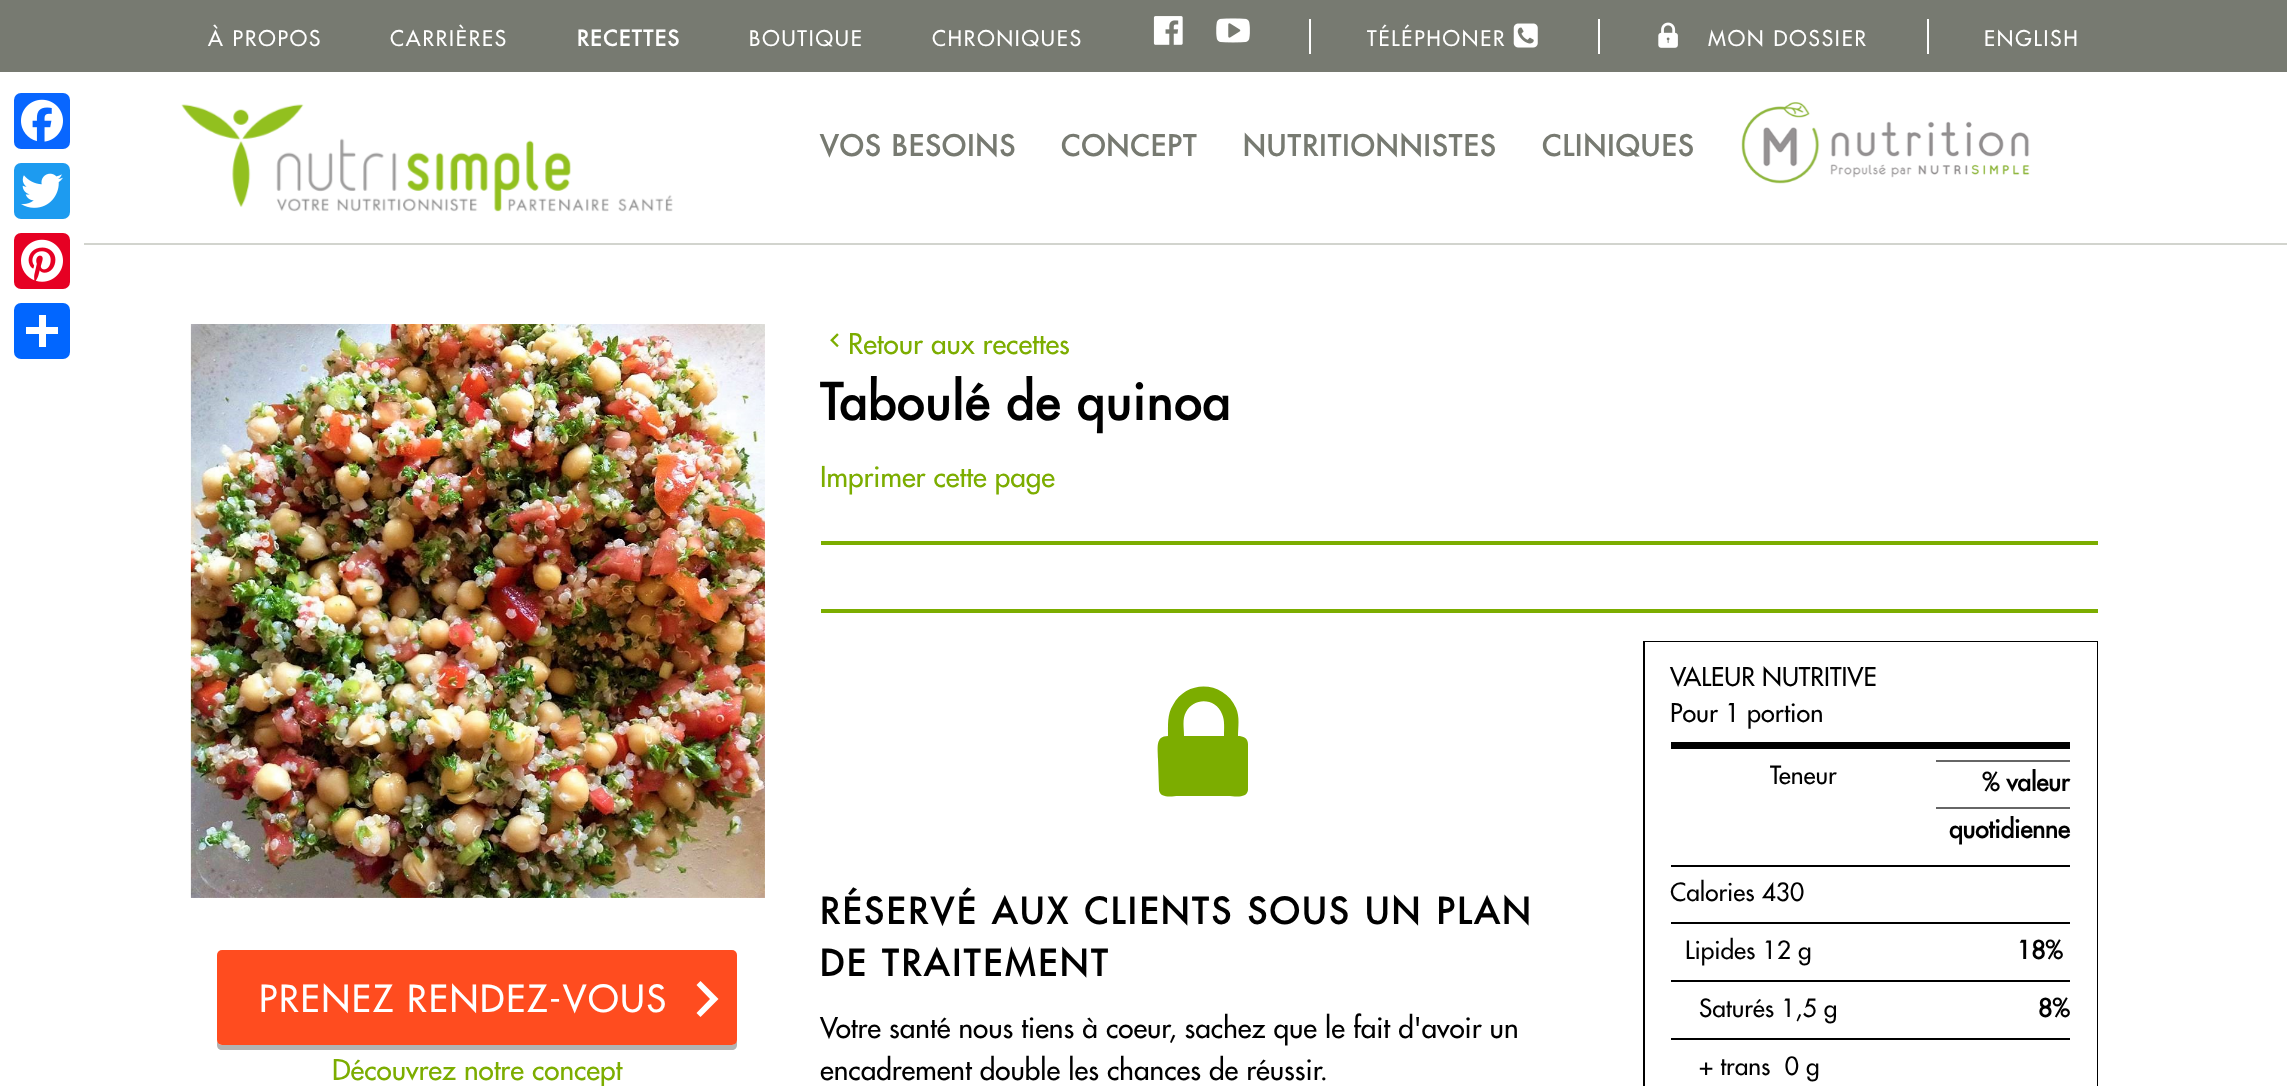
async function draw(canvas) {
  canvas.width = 2287;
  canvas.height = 1086;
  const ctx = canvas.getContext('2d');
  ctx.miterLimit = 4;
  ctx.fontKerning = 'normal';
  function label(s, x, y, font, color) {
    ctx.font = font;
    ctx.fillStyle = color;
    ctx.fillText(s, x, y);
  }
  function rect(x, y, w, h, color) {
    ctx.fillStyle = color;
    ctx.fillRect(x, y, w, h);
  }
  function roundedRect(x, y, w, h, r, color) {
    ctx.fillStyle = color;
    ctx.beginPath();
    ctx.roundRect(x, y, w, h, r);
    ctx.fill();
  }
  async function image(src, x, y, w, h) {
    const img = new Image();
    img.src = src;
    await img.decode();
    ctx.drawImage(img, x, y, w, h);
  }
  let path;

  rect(0, 0, 2287, 1086, '#fff');
  rect(0, 0, 2287, 72, '#777a71');
  ctx.letterSpacing = '1.9px';
  label('À PROPOS', 208, 46, '21px Futura', '#fff');
  label('CARRIÈRES', 390, 46, '21px Futura', '#fff');
  label('RECETTES', 577, 46, 'bold 21px Futura', '#fff');
  label('BOUTIQUE', 749, 46, '21px Futura', '#fff');
  label('CHRONIQUES', 932, 46, '21px Futura', '#fff');
  await image('assets/img1.png', 1153, 16, 30, 29);
  await image('assets/img2.png', 1216, 18, 34, 25);
  rect(1309, 19, 2, 35, '#fff');
  label('TÉLÉPHONER', 1367, 46, '21px Futura', '#fff');
  await image('assets/img3.png', 1513, 23, 25, 25);
  rect(1598, 19, 2, 35, '#fff');
  await image('assets/img4.png', 1658, 22, 20, 26);
  label('MON DOSSIER', 1708, 46, '21px Futura', '#fff');
  rect(1927, 19, 2, 35, '#fff');
  label('ENGLISH', 1984, 46, '21px Futura', '#fff');
  roundedRect(14, 93, 56, 56, 7, '#0866ff');
  await image('assets/img5.png', 21, 99, 42, 43);
  roundedRect(14, 163, 56, 56, 7, '#1d9bf0');
  await image('assets/img6.png', 21, 173, 42, 35);
  roundedRect(14, 233, 56, 56, 7, '#e60023');
  await image('assets/img7.png', 21, 239, 42, 43);
  roundedRect(14, 303, 56, 56, 7, '#0166ff');
  rect(39, 315, 7, 32, '#fff');
  rect(26, 327, 32, 7, '#fff');
  rect(84, 243, 2203, 2, '#d2d4ce');
  await image('assets/img8.png', 181, 104, 492, 108);
  label('VOS BESOINS', 820, 156, 'bold 28px Futura', '#777a71');
  label('CONCEPT', 1061, 156, 'bold 28px Futura', '#777a71');
  label('NUTRITIONNISTES', 1243, 156, 'bold 28px Futura', '#777a71');
  label('CLINIQUES', 1542, 156, 'bold 28px Futura', '#777a71');
  await image('assets/img9.png', 1741, 102, 289, 82);
  await image('assets/img10.png', 190, 324, 575, 574);
  ctx.fillStyle = '#b3b3b3';
  path = new Path2D('M217 1040V1045C217 1048 219 1050 222 1050H732C735 1050 737 1048 737 1045V959V1040C737 1042 734 1045 732 1045H222C219 1045 217 1042 217 1040Z');
  ctx.fill(path);
  roundedRect(217, 950, 520, 95, 5, '#ff4c1f');
  label('PRENEZ RENDEZ-VOUS', 259, 1012, '36.4px Futura', '#fff');
  path = new Path2D('M696.5 1013L700.5 1017L718.5 999L700.5 981L696.5 985L710 999Z');
  ctx.fill(path);
  ctx.letterSpacing = '0px';
  label('Découvrez notre concept', 332, 1080, '28px Futura', '#7cad00');
  await image('assets/img11.png', 830, 333, 9, 15);
  label('Retour aux recettes', 848, 354, '28px Futura', '#7cad00');
  ctx.letterSpacing = '1.75px';
  label('Taboulé de quinoa', 820, 420, 'bold 49px Futura', '#000');
  ctx.letterSpacing = '0px';
  label('Imprimer cette page', 820, 487, '28px Futura', '#7cad00');
  rect(821, 541, 1277, 4, '#7cad00');
  rect(821, 609, 1277, 4, '#7cad00');
  path = new Path2D('M1184 736H1224C1224 729 1225 720 1222 714C1216 698 1194 697 1186 712C1182 719 1184 728 1184 736ZM1248 744V790C1247 799 1234 796 1228 796H1178C1173 796 1160 799 1159 790L1158 759C1158 748 1155 736 1168 736C1168 726 1167 714 1173 705C1187 679 1224 681 1236 708C1240 717 1238 727 1238 736C1243 736 1248 738 1248 744Z');
  ctx.fill(path);
  ctx.letterSpacing = '3.5px';
  label('RÉSERVÉ AUX CLIENTS SOUS UN PLAN', 820, 924, 'bold 35px Futura', '#000');
  label('DE TRAITEMENT', 820, 976, 'bold 35px Futura', '#000');
  ctx.letterSpacing = '0px';
  label('Votre santé nous tiens à coeur, sachez que le fait d\'avoir un', 820, 1038, '28px Futura', '#000');
  label('encadrement double les chances de réussir.', 820, 1080, '28px Futura', '#000');
  ctx.strokeStyle = '#000';
  ctx.lineWidth = 2;
  ctx.strokeRect(1644, 642, 453, 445);
  rect(1645, 642, 425, 1, '#fff');
  rect(2070, 642, 27, 444, '#fff');
  rect(1671, 742, 399, 7, '#000');
  label('VALEUR NUTRITIVE', 1670, 686, '25.25px Futura', '#000');
  label('Pour 1 portion', 1670, 722, '25.25px Futura', '#000');
  label('Teneur', 1770, 784, '24.5px Futura', '#000');
  rect(1671, 865, 399, 2, '#000');
  rect(1936, 760, 134, 2, '#666');
  label('% valeur', 1982, 791, 'bold 24.5px Futura', '#000');
  rect(1936, 807, 134, 2, '#666');
  label('quotidienne', 1949, 838, 'bold 24.5px Futura', '#000');
  label('Calories 430', 1670, 901, '24.5px Futura', '#000');
  rect(1671, 922, 399, 2, '#000');
  label('Lipides 12 g', 1685, 959, '24.5px Futura', '#000');
  rect(1671, 980, 399, 2, '#000');
  label('18%', 2017, 959, 'bold 24.5px Futura', '#000');
  label('Saturés 1,5 g', 1699, 1017, '24.5px Futura', '#000');
  rect(1671, 1038, 399, 2, '#000');
  label('8%', 2038, 1017, 'bold 24.5px Futura', '#000');
  label('+ trans  0 g', 1699, 1075, '24.5px Futura', '#000');
}

draw(document.querySelector('canvas'));
